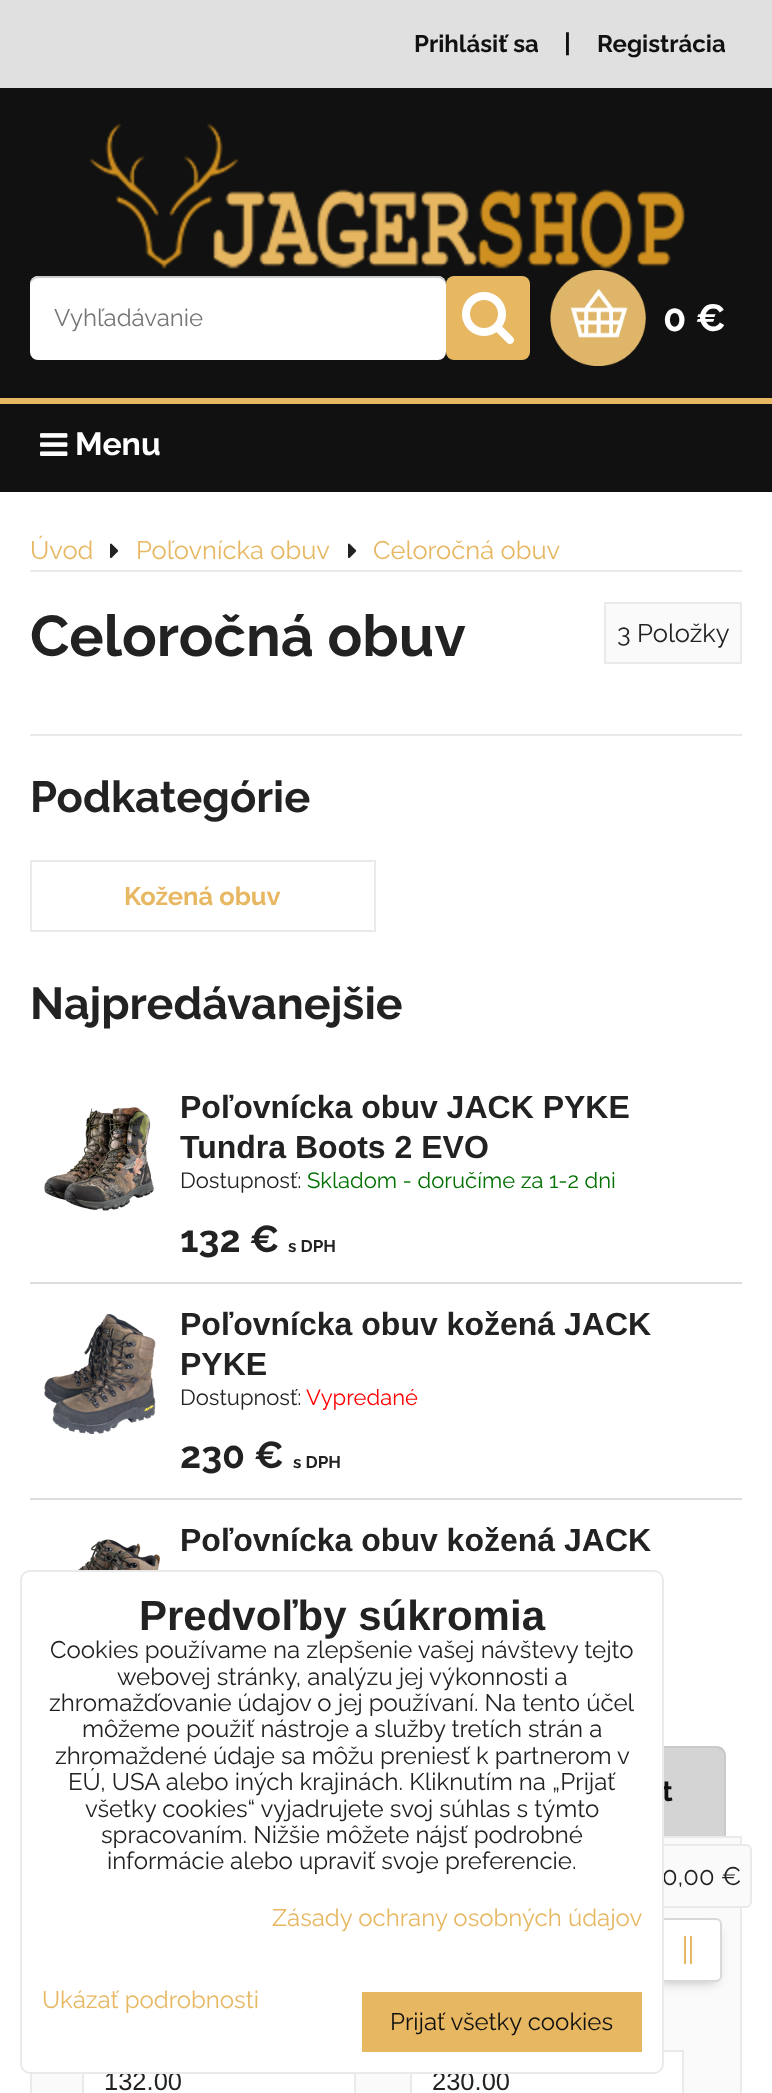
async function draw(canvas) {
  canvas.width = 772;
  canvas.height = 2093;
  const ctx = canvas.getContext('2d');
  ctx.miterLimit = 4;
  ctx.fontKerning = 'normal';
  function label(s, x, y, font, color) {
    ctx.font = font;
    ctx.fillStyle = color;
    ctx.fillText(s, x, y);
  }
  function rect(x, y, w, h, color) {
    ctx.fillStyle = color;
    ctx.fillRect(x, y, w, h);
  }
  function roundedRect(x, y, w, h, r, color) {
    ctx.fillStyle = color;
    ctx.beginPath();
    ctx.roundRect(x, y, w, h, r);
    ctx.fill();
  }
  async function image(src, x, y, w, h) {
    const img = new Image();
    img.src = src;
    await img.decode();
    ctx.drawImage(img, x, y, w, h);
  }
  let path;

  rect(0, 0, 772, 2093, '#fff');
  rect(0, 0, 772, 88, '#e0e0e0');
  label('Prihlásiť sa', 414, 52, '100 24px Raleway', '#111');
  label('|', 564, 52, '100 25.5px Raleway', '#111');
  label('Registrácia', 597, 52, '100 24px Raleway', '#111');
  rect(0, 88, 772, 310, '#111');
  await image('assets/img1.png', 89, 123, 596, 146);
  roundedRect(30, 276, 416, 84, 8, '#fff');
  ctx.fillStyle = '#ccc';
  path = new Path2D('M38 278H438C442 278 446 282 446 286V284C446 280 442 276 438 276H38C34 276 30 280 30 284V286C30 282 34 278 38 278Z');
  ctx.fill(path);
  label('Vyhľadávanie', 54, 326, '100 24px "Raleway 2"', '#757575');
  roundedRect(446, 276, 84, 84, 8, '#e7b762');
  await image('assets/img2.png', 462, 292, 52, 52);
  await image('assets/img3.png', 550, 270, 96, 96);
  label('0 €', 663, 331, '100 38px Raleway', '#fff');
  rect(0, 404, 772, 88, '#111');
  ctx.save();
  ctx.beginPath();
  ctx.rect(0, 398, 772, 94);
  ctx.clip();
  ctx.fillStyle = '#e7b762';
  path = new Path2D('M-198 200H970V690H-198ZM0 404H772C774 404 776 406 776 408V502C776 504 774 506 772 506H0C-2 506-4 504-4 502V408C-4 406-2 404 0 404Z');
  ctx.fill(path, 'evenodd');
  ctx.restore();
  await image('assets/img4.png', 40, 433, 28, 23);
  label('Menu', 75, 455, '100 32px Raleway', '#fff');
  label('Úvod', 30, 559, '100 25.5px "Raleway 2"', '#e7b762');
  await image('assets/img5.png', 110, 543, 9, 16);
  label('Poľovnícka obuv', 136, 559, '100 25.5px "Raleway 2"', '#e7b762');
  await image('assets/img5.png', 348, 543, 9, 16);
  label('Celoročná obuv', 373, 559, '100 25.5px "Raleway 2"', '#e7b762');
  rect(30, 570, 712, 2, '#eaeaea');
  label('Celoročná obuv', 30, 656, '100 57.5px Raleway', '#222');
  ctx.fillStyle = '#fafafa';
  ctx.beginPath();
  ctx.rect(605, 603, 136, 60);
  ctx.fill();
  ctx.strokeStyle = '#eaeaea';
  ctx.lineWidth = 2;
  ctx.stroke();
  label('3 Položky', 617, 642, '100 25.5px "Raleway 2"', '#222');
  rect(30, 734, 712, 2, '#eaeaea');
  label('Podkategórie', 30, 812, '100 43.5px Raleway', '#222');
  ctx.strokeRect(31, 861, 344, 70);
  label('Kožená obuv', 124, 905, '100 25.5px Raleway', '#e7b762');
  label('Najpredávanejšie', 30, 1019, '100 44.75px Raleway', '#222');
  rect(30, 1282, 712, 2, '#ddd');
  await image('assets/img6.png', 44, 1107, 110, 104);
  label('Poľovnícka obuv JACK PYKE', 180, 1118, 'bold 32px Liberation Sans', '#222');
  label('Tundra Boots 2 EVO', 180, 1158, 'bold 32px Liberation Sans', '#222');
  label('Dostupnosť:', 180, 1188, '100 22px "Raleway 2"', '#222');
  label('Skladom - doručíme za 1-2 dni', 307, 1188, '100 22px "Raleway 2"', '#007000');
  label('132 €', 180, 1252, '100 37.5px Raleway', '#222');
  label('s DPH', 288, 1252, '100 17px Raleway', '#222');
  rect(30, 1498, 712, 2, '#ddd');
  await image('assets/img7.png', 44, 1314, 112, 120);
  label('Poľovnícka obuv kožená JACK', 180, 1335, 'bold 32px Liberation Sans', '#222');
  label('PYKE', 180, 1375, 'bold 32px Liberation Sans', '#222');
  label('Dostupnosť:', 180, 1405, '100 22px "Raleway 2"', '#222');
  label('Vypredané', 306, 1405, '100 22px "Raleway 2"', '#f00');
  label('230 €', 180, 1468, '100 37.5px Raleway', '#222');
  label('s DPH', 293, 1468, '100 17px Raleway', '#222');
  await image('assets/img8.png', 78, 1539, 82, 31);
  label('Poľovnícka obuv kožená JACK', 180, 1551, 'bold 32px Liberation Sans', '#222');
  ctx.fillStyle = '#d4d4d4';
  ctx.beginPath();
  ctx.roundRect(470, 1746, 256, 90, [10, 10, 0, 0]);
  ctx.fill();
  ctx.fillStyle = '#cacaca';
  path = new Path2D('M480 1746H716C722 1746 726 1750 726 1756V1836H470V1756C470 1750 474 1746 480 1746ZM480 1748H716C720 1748 724 1752 724 1756V1836H472V1756C472 1752 476 1748 480 1748Z');
  ctx.fill(path, 'evenodd');
  label('t', 662, 1801, '100 28px Raleway', '#111');
  ctx.fillStyle = '#fafafa';
  ctx.beginPath();
  ctx.rect(31, 1837, 710, 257);
  ctx.fill();
  ctx.stroke();
  ctx.fillStyle = '#bbb';
  ctx.filter = 'blur(6px)';
  ctx.beginPath();
  ctx.rect(660, 1930, 56, 52);
  ctx.fill();
  ctx.filter = 'none';
  ctx.fillStyle = '#fff';
  ctx.beginPath();
  ctx.roundRect(655, 1919, 66, 62, 5);
  ctx.fill();
  ctx.strokeStyle = '#d9d9d9';
  ctx.stroke();
  ctx.fillStyle = '#fafafa';
  ctx.beginPath();
  ctx.roundRect(623, 1845, 128, 62, 5);
  ctx.fill();
  ctx.strokeStyle = '#eaeaea';
  ctx.stroke();
  label('0,00 €', 662, 1885, '100 25.5px "Raleway 2"', '#222');
  rect(684, 1936, 2, 28, '#e7b762');
  rect(690, 1936, 2, 28, '#e7b762');
  rect(84, 2074, 270, 19, '#fff');
  ctx.strokeRect(83, 2051, 272, 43);
  label('132.00', 104, 2090, '25.5px Liberation Sans', '#222');
  ctx.fillStyle = '#fff';
  ctx.beginPath();
  ctx.rect(411, 2051, 272, 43);
  ctx.fill();
  ctx.stroke();
  label('230.00', 432, 2090, '25.5px Liberation Sans', '#222');
  ctx.fillStyle = '#fff';
  ctx.beginPath();
  ctx.roundRect(21, 1571, 642, 502, 9);
  ctx.fill();
  ctx.stroke();
  label('Predvoľby súkromia', 139, 1630, 'bold 42px Liberation Sans', '#222');
  label('Cookies používame na zlepšenie vašej návštevy tejto', 50, 1658, '100 24px "Raleway 2"', '#222');
  label('webovej stránky, analýzu jej výkonnosti a', 117, 1685, '100 24px "Raleway 2"', '#222');
  label('zhromažďovanie údajov o jej používaní. Na tento účel', 49, 1711, '100 24px "Raleway 2"', '#222');
  label('môžeme použiť nástroje a služby tretích strán a', 82, 1737, '100 24px "Raleway 2"', '#222');
  label('zhromaždené údaje sa môžu preniesť k partnerom v', 55, 1764, '100 24px "Raleway 2"', '#222');
  label('EÚ, USA alebo iných krajinách. Kliknutím na „Prijať', 68, 1790, '100 24px "Raleway 2"', '#222');
  label('všetky cookies“ vyjadrujete svoj súhlas s týmto', 85, 1817, '100 24px "Raleway 2"', '#222');
  label('spracovaním. Nižšie môžete nájsť podrobné', 101, 1843, '100 24px "Raleway 2"', '#222');
  label('informácie alebo upraviť svoje preferencie.', 107, 1869, '100 24px "Raleway 2"', '#222');
  label('Zásady ochrany osobných údajov', 272, 1926, '100 24px "Raleway 2"', '#e7b762');
  label('Ukázať podrobnosti', 42, 2008, '100 24px "Raleway 2"', '#e7b762');
  rect(362, 1992, 280, 60, '#e7b762');
  label('Prijať všetky cookies', 390, 2030, '100 24px "Raleway 2"', '#111');
}

draw(document.querySelector('canvas'));
